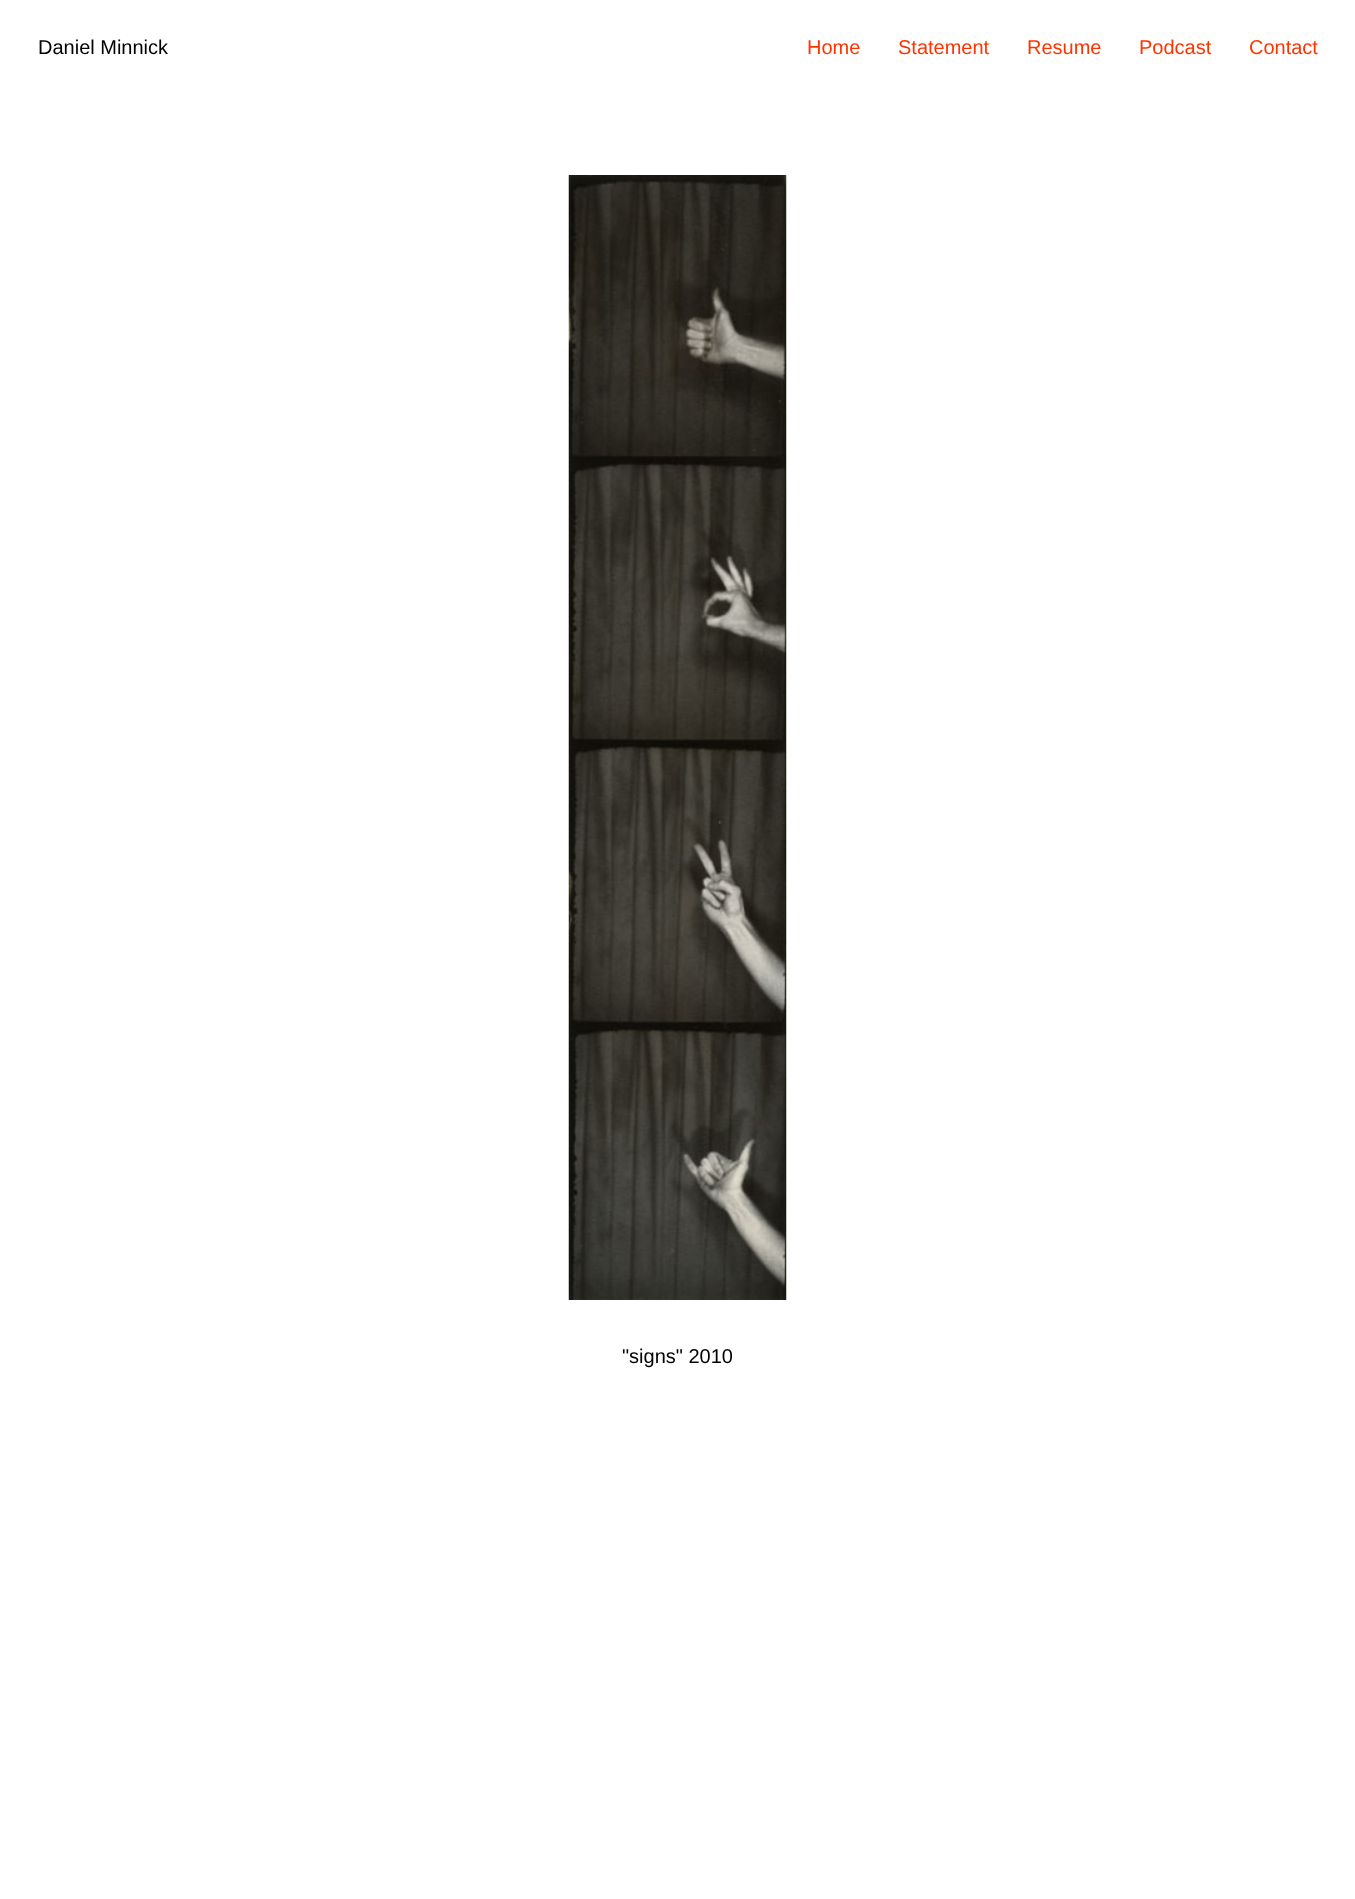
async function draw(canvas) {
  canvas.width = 1355;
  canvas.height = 1899;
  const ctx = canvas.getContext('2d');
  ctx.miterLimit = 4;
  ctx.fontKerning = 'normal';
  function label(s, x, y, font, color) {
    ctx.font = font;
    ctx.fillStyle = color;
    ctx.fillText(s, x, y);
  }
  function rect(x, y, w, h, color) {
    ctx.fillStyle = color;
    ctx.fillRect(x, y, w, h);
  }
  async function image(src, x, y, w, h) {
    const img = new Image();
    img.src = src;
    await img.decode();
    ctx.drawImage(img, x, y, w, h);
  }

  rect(0, 0, 1355, 1899, '#fff');
  label('Daniel Minnick', 38, 54, '20px Liberation Sans', '#000');
  label('Home', 807, 54, '20px Liberation Sans', '#f30');
  label('Statement', 898, 54, '20px Liberation Sans', '#f30');
  label('Resume', 1027, 54, '20px Liberation Sans', '#f30');
  label('Podcast', 1139, 54, '20px Liberation Sans', '#f30');
  label('Contact', 1249, 54, '20px Liberation Sans', '#f30');
  await image('assets/img1.png', 568, 175, 219, 1125);
  label('"signs" 2010', 622, 1363, '20px Liberation Sans', '#000');
}

draw(document.querySelector('canvas'));
